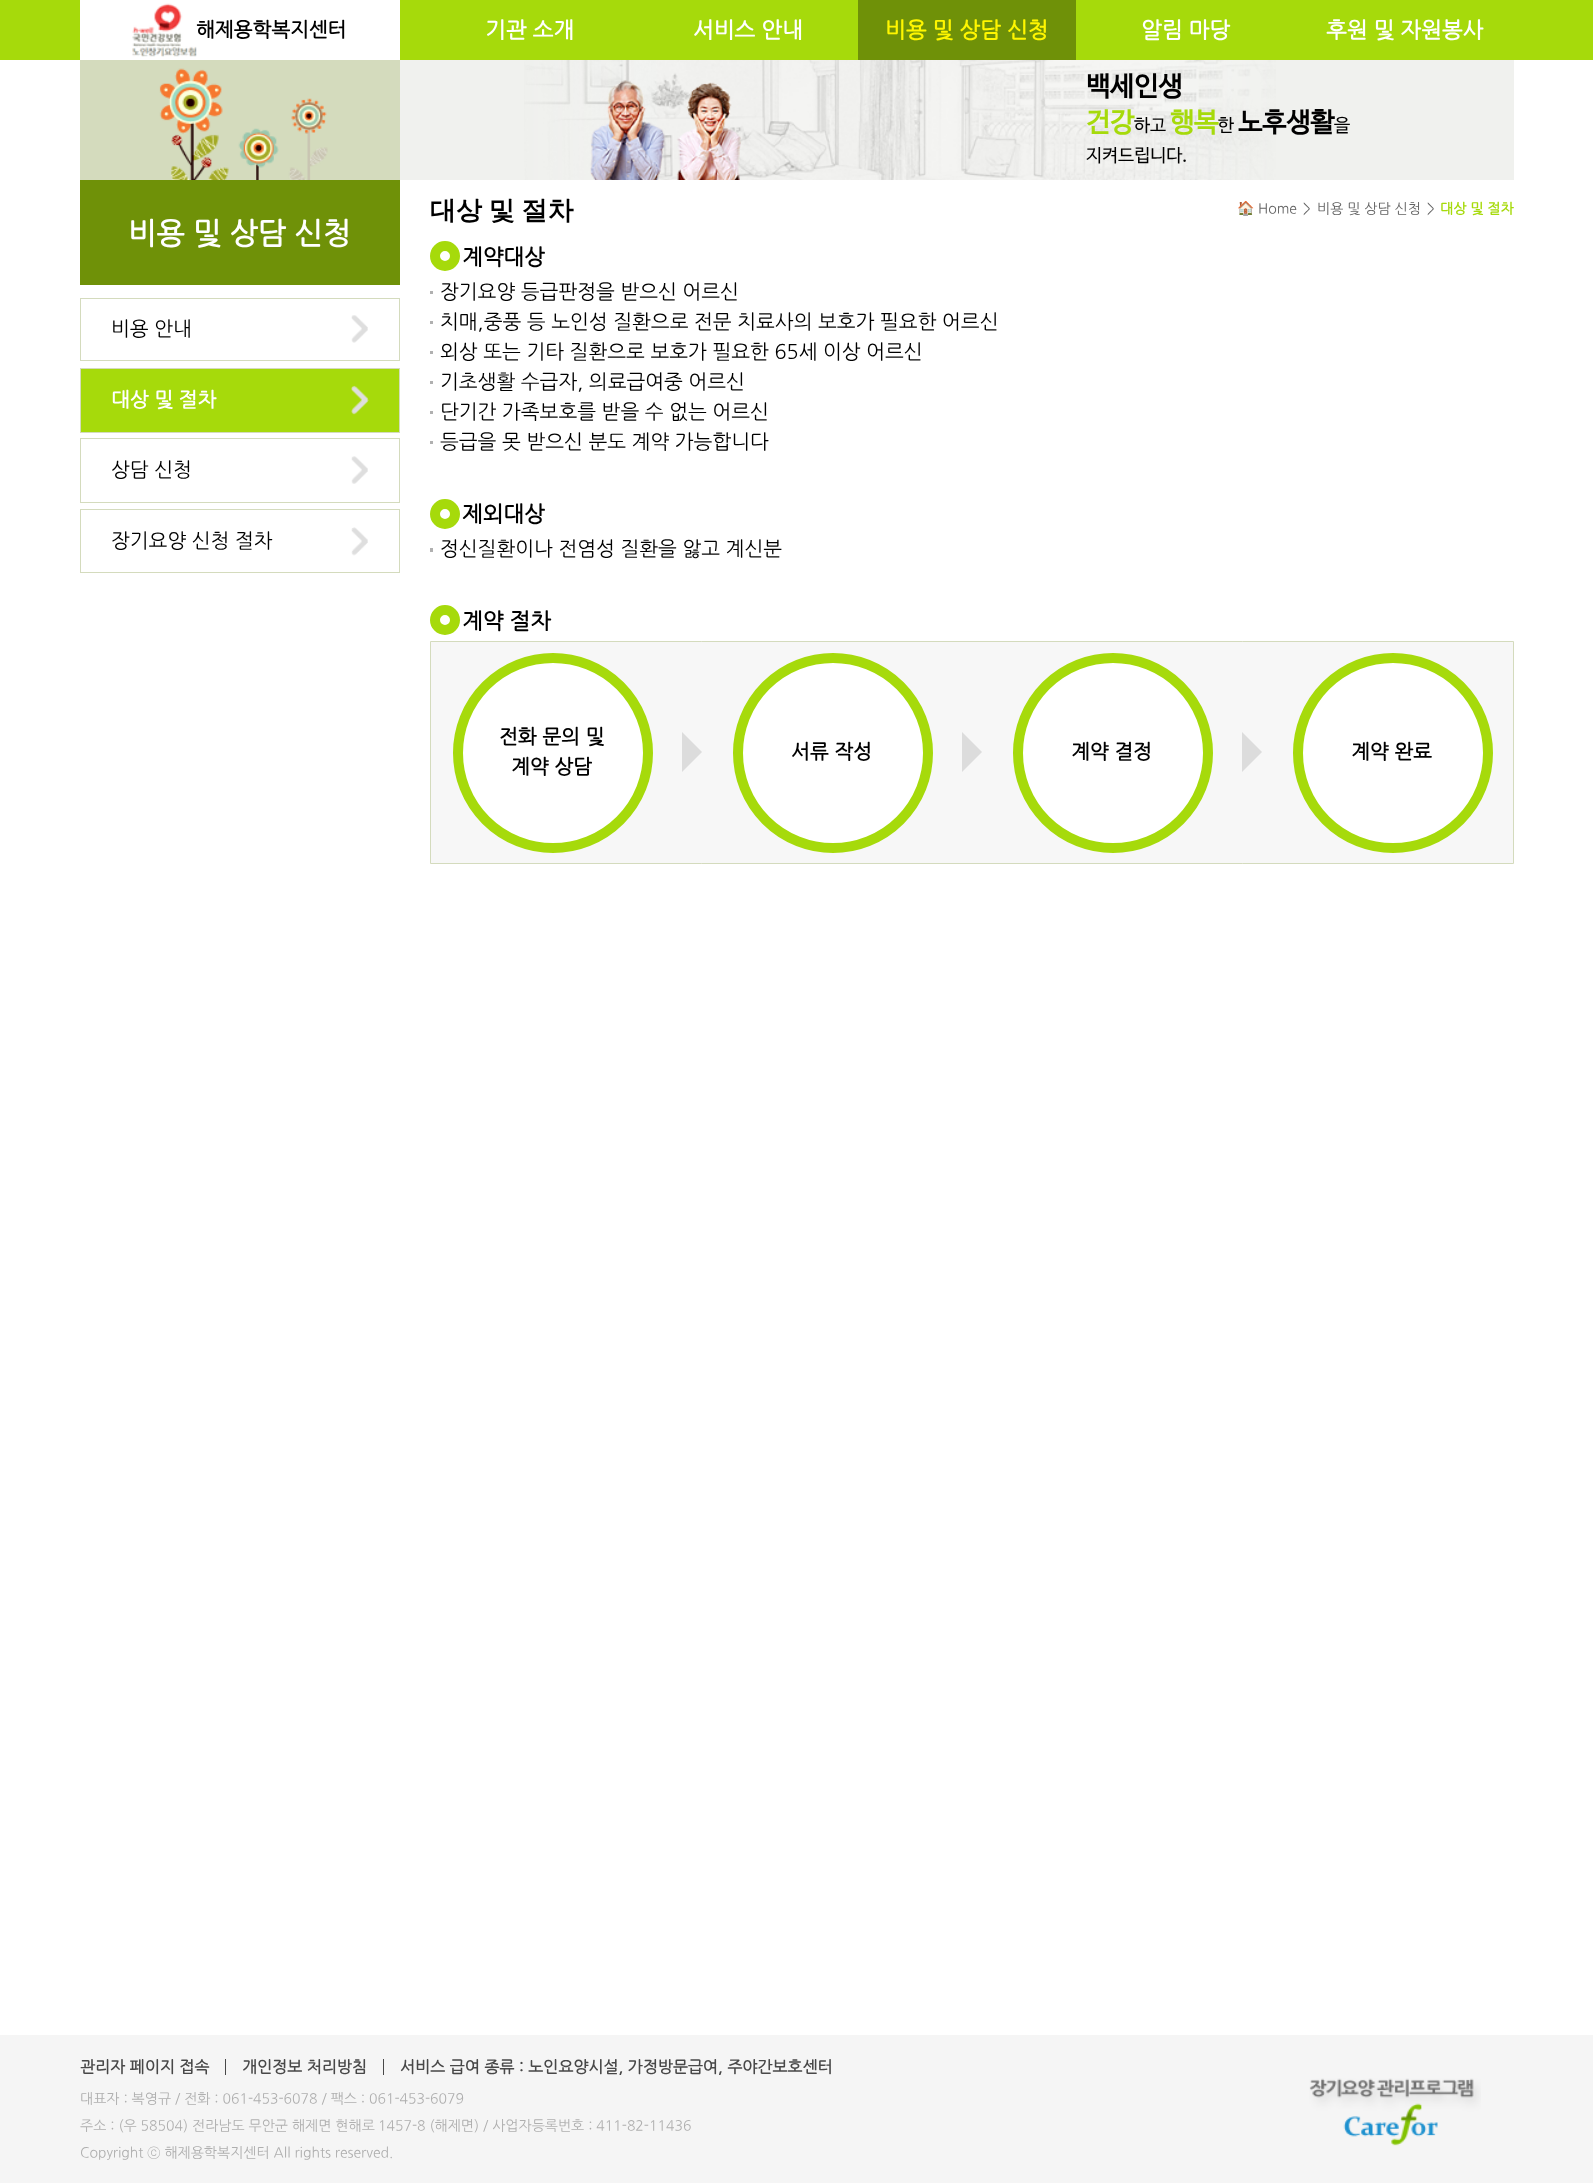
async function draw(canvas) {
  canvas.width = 1593;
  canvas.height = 2183;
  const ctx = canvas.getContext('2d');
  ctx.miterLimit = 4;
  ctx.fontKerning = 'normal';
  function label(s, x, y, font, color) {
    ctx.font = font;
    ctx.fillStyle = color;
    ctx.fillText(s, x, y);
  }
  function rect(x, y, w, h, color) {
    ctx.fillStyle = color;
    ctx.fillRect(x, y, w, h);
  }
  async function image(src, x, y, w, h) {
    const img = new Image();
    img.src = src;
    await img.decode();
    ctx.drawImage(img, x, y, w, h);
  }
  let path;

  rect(0, 0, 1593, 2183, '#fff');
  rect(0, 0, 1593, 60, '#a6da0b');
  rect(80, 0, 320, 60, '#fff');
  await image('assets/img1.png', 132, 3, 65, 54);
  label('해제용학복지센터', 196, 36, 'bold 20px NanumGothic', '#000');
  label('기관 소개', 485, 37, 'bold 22px NanumGothic', '#fff');
  label('서비스 안내', 693, 37, 'bold 22px NanumGothic', '#fff');
  rect(858, 0, 218, 60, '#6f9108');
  label('비용 및 상담 신청', 885, 37, 'bold 22px NanumGothic', '#fff600');
  label('알림 마당', 1141, 37, 'bold 22px NanumGothic', '#fff');
  label('후원 및 자원봉사', 1326, 37, 'bold 22px NanumGothic', '#fff');
  rect(80, 60, 320, 120, '#d4dbbd');
  await image('assets/img2.png', 159, 68, 169, 112);
  rect(400, 60, 1114, 120, '#f0f1ee');
  await image('assets/img3.png', 524, 60, 752, 120);
  await image('assets/img4.png', 590, 80, 151, 100);
  label('백세인생', 1086, 95, 'bold 27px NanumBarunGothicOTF', '#000');
  label('건강', 1086, 131, 'bold 27px NanumBarunGothicOTF', '#a6da0b');
  label('하고', 1134, 131, '18px NanumBarunGothicOTF', '#000');
  label('행복', 1170, 131, 'bold 27px NanumBarunGothicOTF', '#a6da0b');
  label('한', 1218, 131, '18px NanumBarunGothicOTF', '#000');
  label('노후생활', 1238, 131, 'bold 27px NanumBarunGothicOTF', '#000');
  label('을', 1334, 131, '18px NanumBarunGothicOTF', '#000');
  label('지켜드립니다.', 1086, 161, '18px NanumBarunGothicOTF', '#000');
  ctx.wordSpacing = '-1px';
  label('대상 및 절차', 430, 219, 'bold 26px WenQuanYi Zen Hei', '#000');
  ctx.wordSpacing = '0px';
  label('🏠', 1237, 213, '14px Noto Color Emoji', '#636363');
  label('Home', 1258, 213, '14px NanumGothic', '#636363');
  label('>', 1303, 213, '14px NanumGothic', '#636363');
  label('비용 및 상담 신청', 1317, 213, '14px NanumGothic', '#636363');
  label('>', 1427, 213, '14px NanumGothic', '#636363');
  label('대상 및 절차', 1440, 213, 'bold 14px NanumGothic', '#a6da0b');
  rect(80, 180, 320, 105, '#6f9108');
  label('비용 및 상담 신청', 128, 243, 'bold 30px NanumGothic', '#fff');
  await image('assets/img5.png', 351, 315, 17, 28);
  ctx.strokeStyle = '#d4dbbd';
  ctx.strokeRect(80.5, 298.5, 319, 62);
  label('비용 안내', 111, 335, '20px NanumGothic', '#000');
  rect(81, 369, 318, 63, '#a6da0b');
  await image('assets/img6.png', 351, 385, 18, 30);
  ctx.strokeRect(80.5, 368.5, 319, 64);
  label('대상 및 절차', 111, 406, 'bold 20px NanumGothic', '#fff');
  await image('assets/img7.png', 351, 456, 17, 28);
  ctx.strokeRect(80.5, 438.5, 319, 64);
  label('상담 신청', 111, 476, '20px NanumGothic', '#000');
  await image('assets/img8.png', 351, 527, 17, 29);
  ctx.strokeRect(80.5, 509.5, 319, 63);
  label('장기요양 신청 절차', 111, 547, '20px NanumGothic', '#000');
  ctx.beginPath();
  ctx.arc(445, 256, 10, 0, 2 * Math.PI);
  ctx.strokeStyle = '#a6da0b';
  ctx.lineWidth = 10;
  ctx.stroke();
  label('계약대상', 462, 264, 'bold 22px NanumGothic', '#000');
  rect(430, 291, 3, 3, '#b0b0b0');
  label('장기요양 등급판정을 받으신 어르신', 440, 298, '20px NanumGothic', '#000');
  rect(430, 321, 3, 3, '#b0b0b0');
  label('치매,중풍 등 노인성 질환으로 전문 치료사의 보호가 필요한 어르신', 440, 328, '20px NanumGothic', '#000');
  rect(430, 351, 3, 3, '#b0b0b0');
  label('외상 또는 기타 질환으로 보호가 필요한 65세 이상 어르신', 440, 358, '20px NanumGothic', '#000');
  rect(430, 381, 3, 3, '#b0b0b0');
  label('기초생활 수급자, 의료급여중 어르신', 440, 388, '20px NanumGothic', '#000');
  rect(430, 411, 3, 3, '#b0b0b0');
  label('단기간 가족보호를 받을 수 없는 어르신', 440, 418, '20px NanumGothic', '#000');
  rect(430, 441, 3, 3, '#b0b0b0');
  label('등급을 못 받으신 분도 계약 가능합니다', 440, 448, '20px NanumGothic', '#000');
  ctx.beginPath();
  ctx.arc(445, 514, 10, 0, 2 * Math.PI);
  ctx.stroke();
  label('제외대상', 462, 521, 'bold 22px NanumGothic', '#000');
  rect(430, 548, 3, 4, '#b0b0b0');
  label('정신질환이나 전염성 질환을 앓고 계신분', 440, 555, '20px NanumGothic', '#000');
  ctx.beginPath();
  ctx.arc(445, 620, 10, 0, 2 * Math.PI);
  ctx.stroke();
  label('계약 절차', 462, 628, 'bold 22px NanumGothic', '#000');
  ctx.fillStyle = '#f7f7f7';
  ctx.beginPath();
  ctx.rect(430.5, 641.5, 1083, 222);
  ctx.fill();
  ctx.strokeStyle = '#d4dbbd';
  ctx.lineWidth = 1;
  ctx.stroke();
  ctx.fillStyle = '#fff';
  ctx.beginPath();
  ctx.arc(553, 753, 95, 0, 2 * Math.PI);
  ctx.fill();
  ctx.strokeStyle = '#a6da0b';
  ctx.lineWidth = 10;
  ctx.stroke();
  label('전화 문의 및', 499, 743, 'bold 20px NanumGothic', '#000');
  label('계약 상담', 511, 773, 'bold 20px NanumGothic', '#000');
  ctx.fillStyle = '#dcdcdc';
  path = new Path2D('M682 772V732L702 752Z');
  ctx.fill(path);
  ctx.fillStyle = '#fff';
  ctx.beginPath();
  ctx.arc(833, 753, 95, 0, 2 * Math.PI);
  ctx.fill();
  ctx.stroke();
  label('서류 작성', 791, 758, 'bold 20px NanumGothic', '#000');
  ctx.fillStyle = '#dcdcdc';
  path = new Path2D('M962 772V732L982 752Z');
  ctx.fill(path);
  ctx.fillStyle = '#fff';
  ctx.beginPath();
  ctx.arc(1113, 753, 95, 0, 2 * Math.PI);
  ctx.fill();
  ctx.stroke();
  label('계약 결정', 1071, 758, 'bold 20px NanumGothic', '#000');
  ctx.fillStyle = '#dcdcdc';
  path = new Path2D('M1242 772V732L1262 752Z');
  ctx.fill(path);
  ctx.fillStyle = '#fff';
  ctx.beginPath();
  ctx.arc(1393, 753, 95, 0, 2 * Math.PI);
  ctx.fill();
  ctx.stroke();
  label('계약 완료', 1351, 758, 'bold 20px NanumGothic', '#000');
  rect(0, 2035, 1593, 148, '#f5f5f5');
  label('관리자 페이지 접속', 80, 2072, 'bold 16px NanumGothic', '#484848');
  rect(225, 2059, 1, 16, '#484848');
  label('개인정보 처리방침', 242, 2072, 'bold 16px NanumGothic', '#484848');
  rect(383, 2059, 1, 16, '#484848');
  label('서비스 급여 종류 : 노인요양시설, 가정방문급여, 주야간보호센터', 400, 2072, 'bold 16px NanumGothic', '#484848');
  label('대표자 : 복영규 / 전화 : 061-453-6078 / 팩스 : 061-453-6079', 80, 2103, '14px NanumGothic', '#afafaf');
  label('주소 : (우 58504) 전라남도 무안군 해제면 현해로', 80, 2130, '14px NanumGothic', '#afafaf');
  label('1457-8 (해제면) / 사업자등록번호 : 411-82-11436', 378, 2130, '14px NanumGothic', '#afafaf');
  label('Copyright ⓒ 해제용학복지센터 All rights reserved.', 80, 2157, '14px NanumGothic', '#afafaf');
  await image('assets/img9.png', 1309, 2078, 172, 68);
}

draw(document.querySelector('canvas'));
